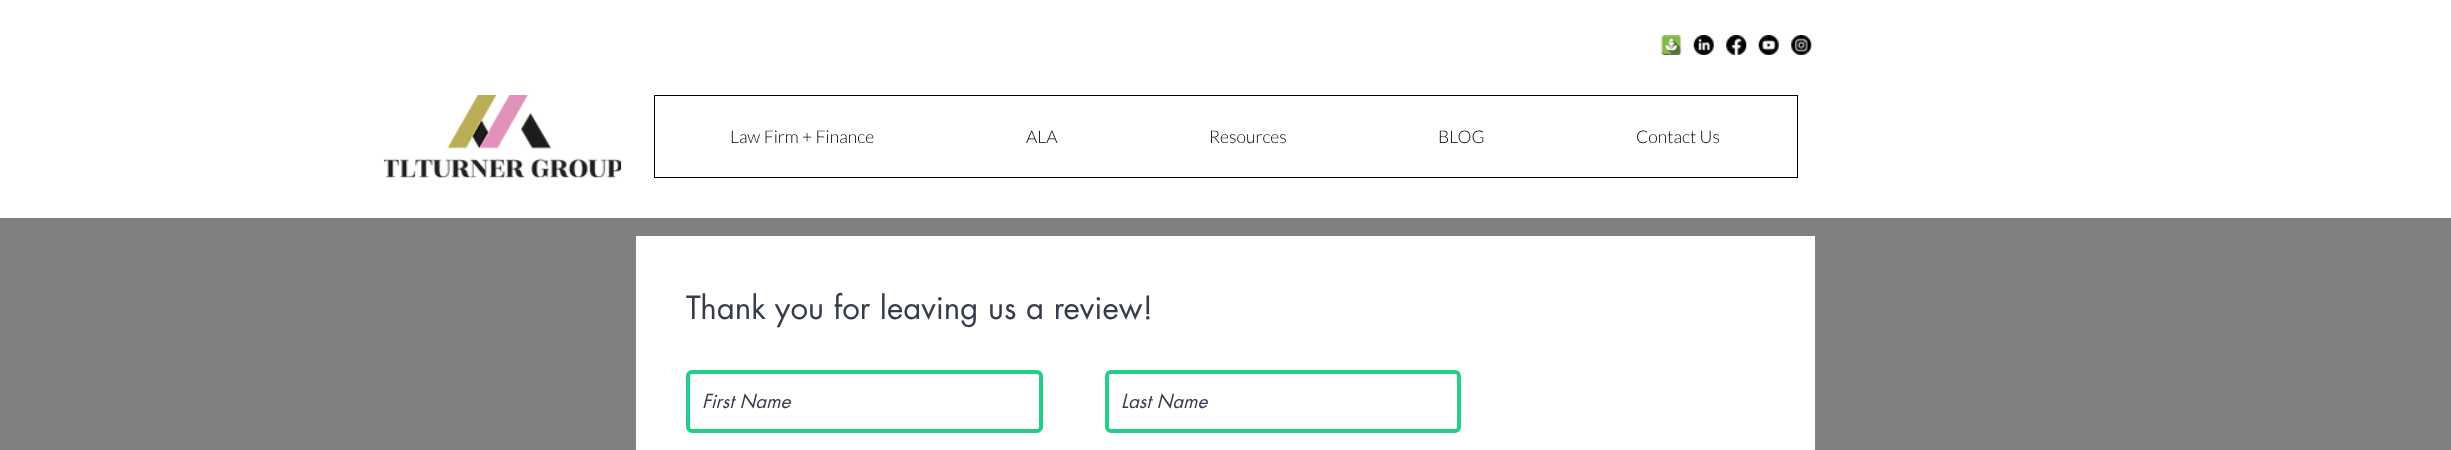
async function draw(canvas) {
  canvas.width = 2451;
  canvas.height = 450;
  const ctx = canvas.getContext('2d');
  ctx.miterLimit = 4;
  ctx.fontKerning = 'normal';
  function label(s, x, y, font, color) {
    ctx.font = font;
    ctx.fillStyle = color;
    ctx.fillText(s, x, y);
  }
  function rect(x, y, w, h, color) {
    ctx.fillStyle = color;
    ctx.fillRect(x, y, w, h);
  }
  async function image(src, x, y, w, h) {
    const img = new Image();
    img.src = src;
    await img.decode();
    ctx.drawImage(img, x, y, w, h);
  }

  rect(0, 0, 2451, 450, '#808080');
  rect(0, 0, 2451, 218, '#fff');
  await image('assets/img1.png', 1661, 35, 21, 20);
  await image('assets/img2.png', 1693, 35, 21, 20);
  await image('assets/img3.png', 1726, 35, 21, 20);
  await image('assets/img4.png', 1758, 35, 21, 20);
  await image('assets/img5.png', 1791, 35, 21, 20);
  await image('assets/img6.png', 383, 95, 239, 83);
  ctx.strokeStyle = '#000';
  ctx.strokeRect(654.5, 95.5, 1143, 82);
  label('Law Firm + Finance', 730, 143, '300 17.5px Lato', '#000');
  label('ALA', 1026, 143, '300 17.5px Lato', '#000');
  label('Resources', 1209, 143, '300 17.5px Lato', '#000');
  label('BLOG', 1438, 143, '300 17.5px Lato', '#000');
  label('Contact Us', 1636, 143, '300 17.5px Lato', '#000');
  rect(636, 236, 1179, 214, '#fff');
  label('Thank you for leaving us a review!', 686, 319, '31.25px futura', '#373b4d');
  ctx.beginPath();
  ctx.roundRect(688, 372, 353, 59, 4);
  ctx.strokeStyle = '#22ce88';
  ctx.lineWidth = 4;
  ctx.stroke();
  label('First Name', 702, 408, 'italic 18.75px futura', '#373b4d');
  ctx.beginPath();
  ctx.roundRect(1107, 372, 352, 59, 4);
  ctx.stroke();
  label('Last Name', 1121, 408, 'italic 18.75px futura', '#373b4d');
}

draw(document.querySelector('canvas'));
